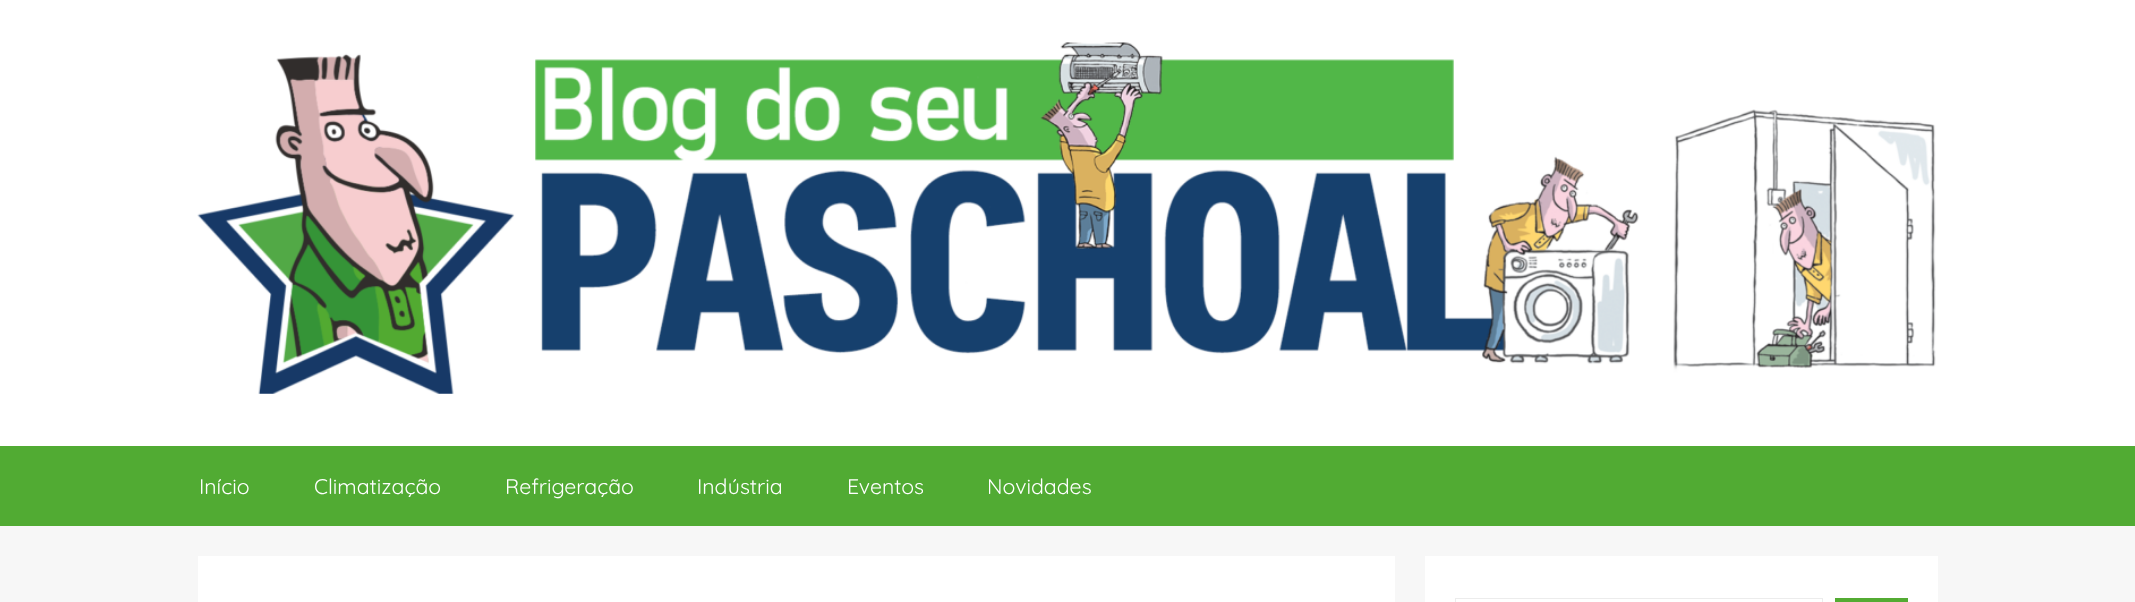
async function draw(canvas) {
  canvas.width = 2135;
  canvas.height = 602;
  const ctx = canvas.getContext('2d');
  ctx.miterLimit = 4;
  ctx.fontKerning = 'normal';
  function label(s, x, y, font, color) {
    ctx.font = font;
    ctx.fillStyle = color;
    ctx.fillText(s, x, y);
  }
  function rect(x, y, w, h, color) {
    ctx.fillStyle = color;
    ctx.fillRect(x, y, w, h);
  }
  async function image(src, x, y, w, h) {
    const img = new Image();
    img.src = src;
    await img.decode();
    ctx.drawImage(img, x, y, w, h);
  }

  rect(0, 0, 2135, 602, '#f7f7f7');
  rect(0, 0, 2135, 446, '#fff');
  await image('assets/img1.png', 197, 42, 1739, 352);
  rect(0, 446, 2135, 80, '#51ab33');
  label('Início', 199, 494, '21.25px Quicksand', '#fff');
  label('Climatização', 314, 494, '21.25px Quicksand', '#fff');
  label('Refrigeração', 505, 494, '21.25px Quicksand', '#fff');
  label('Indústria', 697, 494, '21.25px Quicksand', '#fff');
  label('Eventos', 847, 494, '21.25px Quicksand', '#fff');
  label('Novidades', 987, 494, '21.25px Quicksand', '#fff');
  rect(198, 556, 1197, 46, '#fff');
  rect(1425, 556, 513, 46, '#fff');
  ctx.strokeStyle = '#ececec';
  ctx.strokeRect(1455.5, 598.5, 367, 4);
  rect(1835, 598, 73, 4, '#53ab33');
}

draw(document.querySelector('canvas'));
